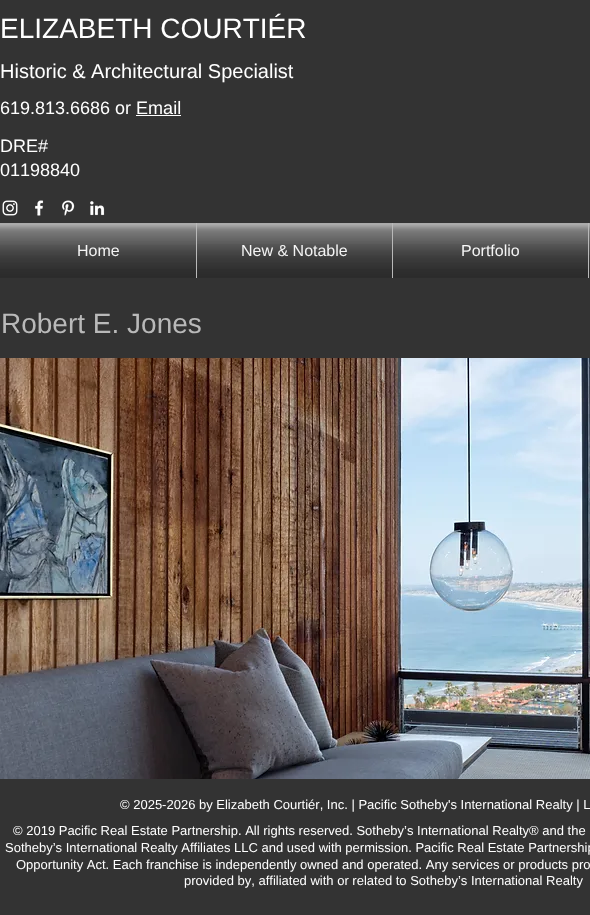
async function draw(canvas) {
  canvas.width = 590;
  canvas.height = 915;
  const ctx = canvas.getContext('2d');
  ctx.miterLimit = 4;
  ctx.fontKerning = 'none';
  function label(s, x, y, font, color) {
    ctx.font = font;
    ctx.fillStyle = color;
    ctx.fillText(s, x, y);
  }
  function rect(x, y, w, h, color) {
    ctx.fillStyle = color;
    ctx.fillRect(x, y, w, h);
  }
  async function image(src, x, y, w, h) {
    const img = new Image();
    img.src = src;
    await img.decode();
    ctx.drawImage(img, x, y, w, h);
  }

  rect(0, 0, 590, 915, '#333');
  label('ELIZABETH COURTIÉR', 0, 38, '28px Liberation Sans', '#fff');
  label('Historic & Architectural Specialist', 0, 78, '20px Liberation Sans', '#fff');
  label('619.813.6686 or Email', 0, 114, '18px Liberation Sans', '#fff');
  rect(136, 115, 45, 1, '#fff');
  label('DRE#', 0, 152, '18px Liberation Sans', '#fff');
  label('01198840', 0, 176, '18px Liberation Sans', '#fff');
  await image('assets/img1.png', 2, 200, 16, 16);
  await image('assets/img2.png', 35, 200, 9, 16);
  await image('assets/img3.png', 62, 200, 13, 16);
  await image('assets/img4.png', 90, 201, 15, 15);
  label('Home', 77, 256, '16px Liberation Sans', '#fff');
  await image('assets/img5.png', 0, 223, 196, 46);
  await image('assets/img6.png', 0, 245, 196, 33);
  rect(196, 223, 1, 55, '#b9b9b9');
  label('New & Notable', 241, 256, '16px Liberation Sans', '#fff');
  await image('assets/img7.png', 197, 223, 195, 46);
  await image('assets/img8.png', 197, 244, 195, 34);
  rect(392, 223, 1, 55, '#b9b9b9');
  label('Portfolio', 461, 256, '16px Liberation Sans', '#fff');
  await image('assets/img9.png', 393, 223, 195, 46);
  await image('assets/img10.png', 393, 244, 195, 34);
  rect(588, 223, 1, 55, '#b9b9b9');
  await image('assets/img11.png', 589, 223, 1, 46);
  await image('assets/img12.png', 589, 255, 1, 23);
  label('Robert E. Jones', 1, 333, '28px Liberation Sans', '#b9b9b9');
  await image('assets/img13.png', 0, 358, 590, 421);
  label('© 2025-2026 by Elizabeth Courtiér, Inc. | Pacific Sotheby\'s International Realty | L', 120, 809, '13px Liberation Sans', '#fff');
  label('© 2019 Pacific Real Estate Partnership. All rights reserved. Sotheby’s International Realty® and the', 13, 835, '13px Liberation Sans', '#fff');
  label('Sotheby’s International Realty Affiliates LLC and used with permission. Pacific Real Estate Partnership', 5, 852, '13px Liberation Sans', '#fff');
  label('Opportunity Act. Each franchise is independently owned and operated. Any services or products pro', 16, 869, '13px Liberation Sans', '#fff');
  label('provided by, affiliated with or related to Sotheby’s International Realty', 184, 885, '13px Liberation Sans', '#fff');
}

draw(document.querySelector('canvas'));
